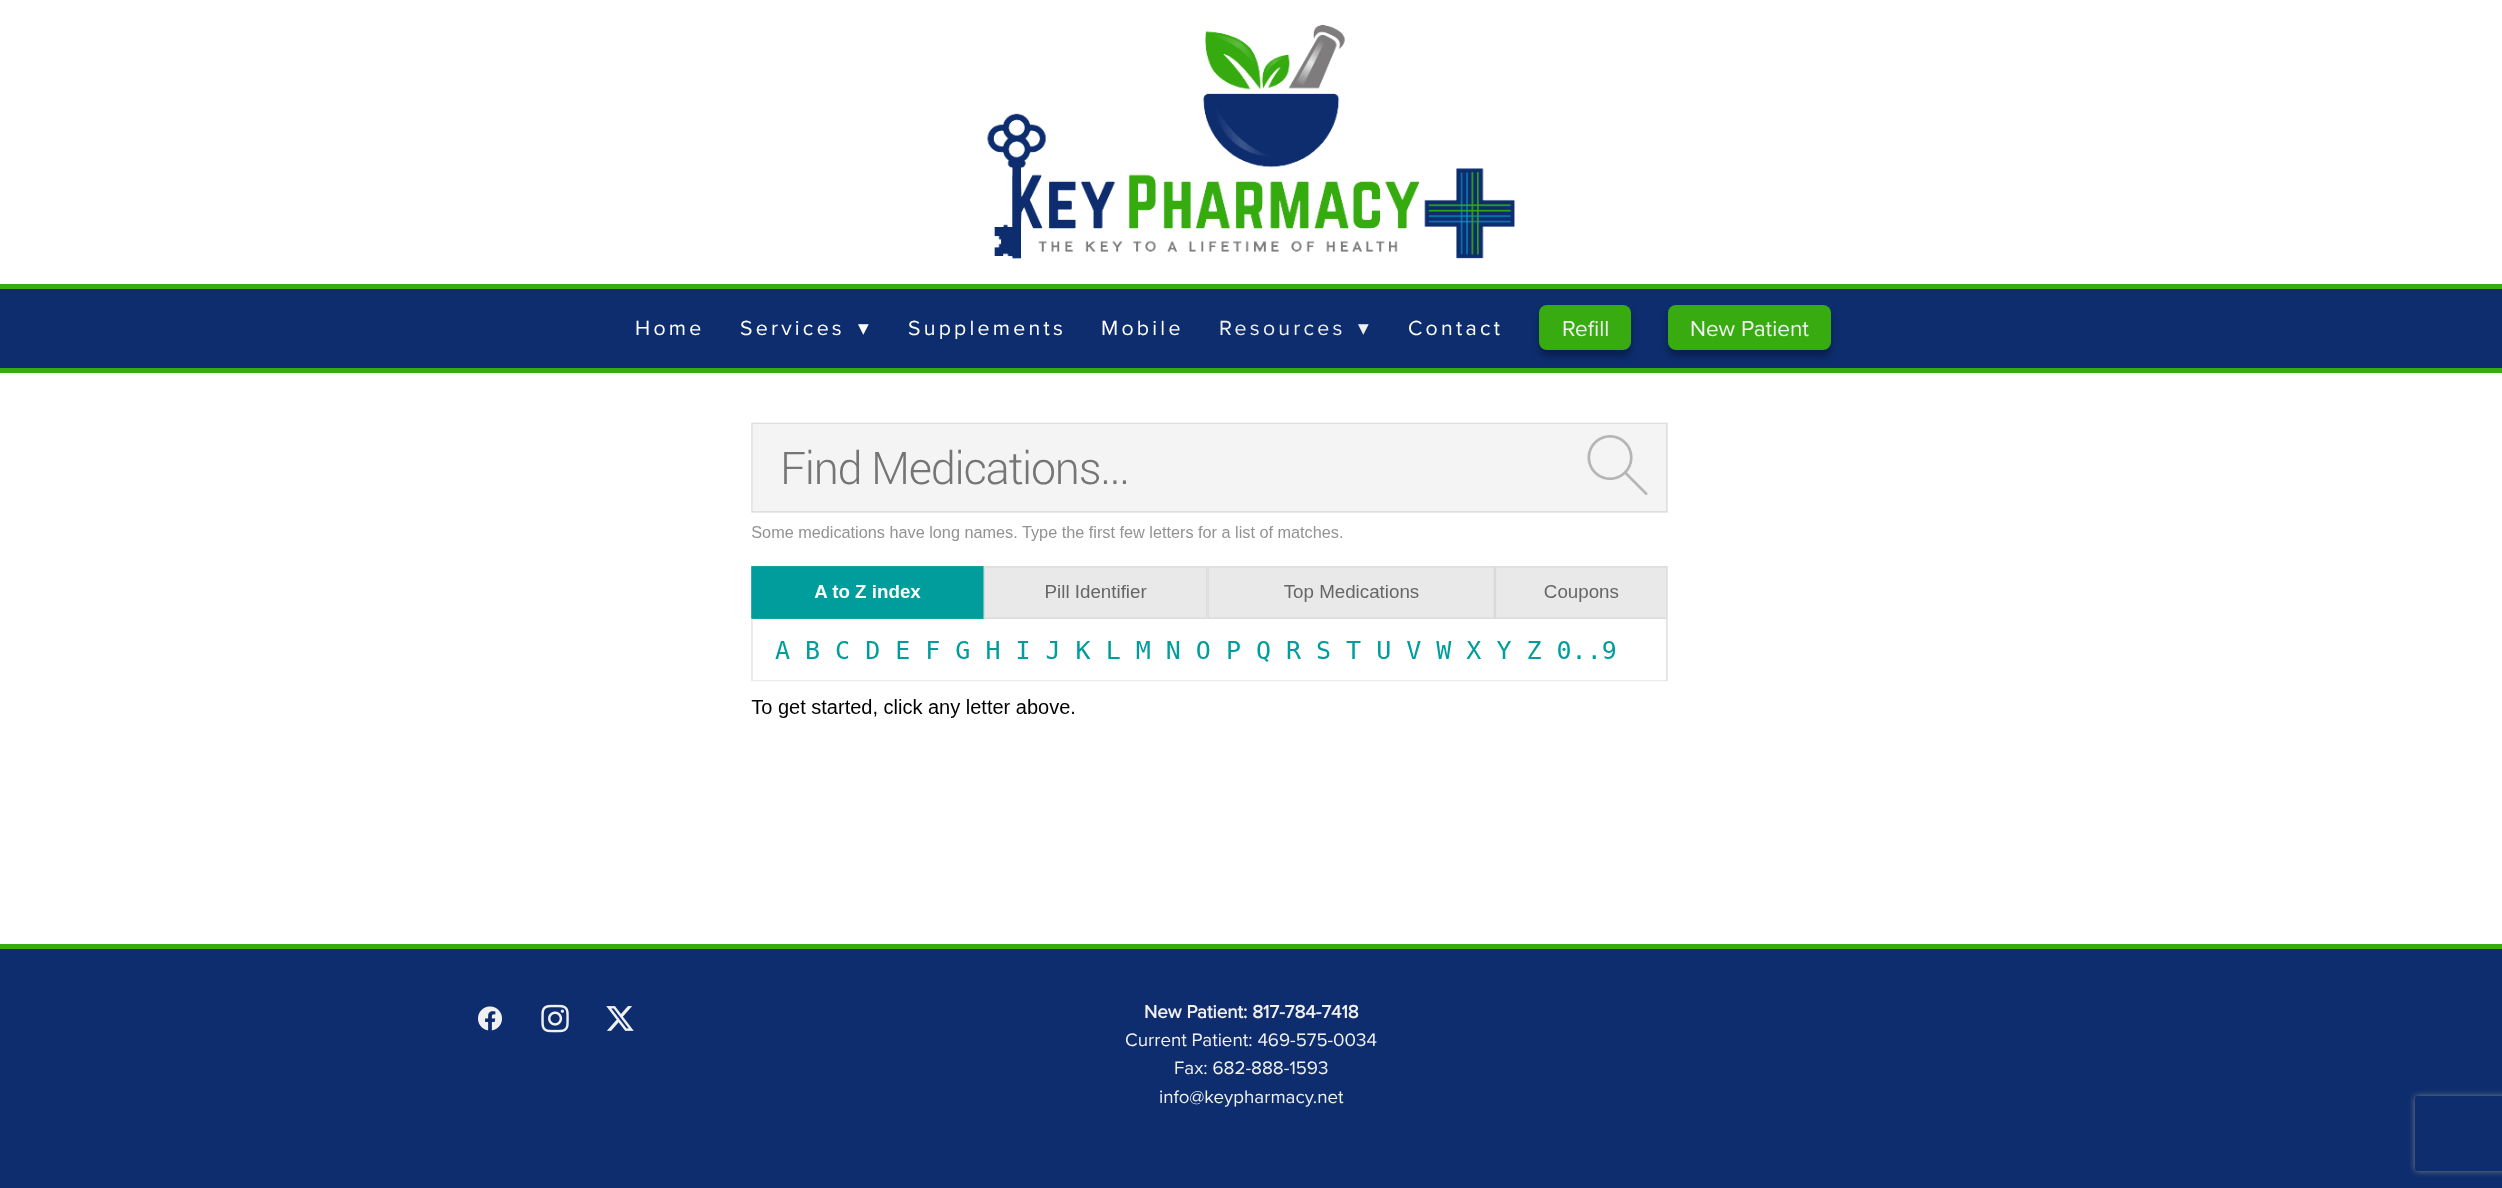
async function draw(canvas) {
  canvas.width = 2502;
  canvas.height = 1188;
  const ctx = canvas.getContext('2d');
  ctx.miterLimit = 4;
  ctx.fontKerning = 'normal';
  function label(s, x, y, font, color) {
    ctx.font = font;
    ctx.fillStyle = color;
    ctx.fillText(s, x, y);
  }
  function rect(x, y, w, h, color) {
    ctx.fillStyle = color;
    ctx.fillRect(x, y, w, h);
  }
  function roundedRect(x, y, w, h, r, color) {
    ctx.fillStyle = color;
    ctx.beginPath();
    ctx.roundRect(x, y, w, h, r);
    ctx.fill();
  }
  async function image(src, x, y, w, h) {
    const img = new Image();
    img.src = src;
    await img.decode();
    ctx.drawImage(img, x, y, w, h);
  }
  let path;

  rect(0, 0, 2502, 1188, '#fff');
  await image('assets/img1.png', 987, 25, 528, 234);
  rect(0, 289, 2502, 79, '#0d2d6e');
  rect(0, 284, 2502, 5, '#38ab11');
  rect(0, 368, 2502, 5, '#38ab11');
  ctx.letterSpacing = '3.25px';
  label('Home', 635, 335, '21.25px Proxima Nova', '#fff');
  label('Services', 740, 335, '21.25px Proxima Nova', '#fff');
  label('▾', 858, 335, '21.25px DejaVu Sans', '#fff');
  label('Supplements', 908, 335, '21.25px Proxima Nova', '#fff');
  label('Mobile', 1101, 335, '21.25px Proxima Nova', '#fff');
  label('Resources', 1219, 335, '21.25px Proxima Nova', '#f0f0f0');
  label('▾', 1358, 335, '21.25px DejaVu Sans', '#f0f0f0');
  label('Contact', 1408, 335, '21.25px Proxima Nova', '#fff');
  ctx.fillStyle = '#0000004d';
  ctx.filter = 'blur(3px)';
  ctx.beginPath();
  ctx.roundRect(1539, 311, 92, 45, 8);
  ctx.fill();
  ctx.filter = 'none';
  roundedRect(1539, 305, 92, 45, 8, '#38ab11');
  ctx.letterSpacing = '0px';
  label('Refill', 1562, 336, '22.5px Proxima Nova', '#f0f0f0');
  ctx.fillStyle = '#0000004d';
  ctx.filter = 'blur(3px)';
  ctx.beginPath();
  ctx.roundRect(1668, 311, 163, 45, 8);
  ctx.fill();
  ctx.filter = 'none';
  roundedRect(1668, 305, 163, 45, 8, '#38ab11');
  label('New Patient', 1690, 336, '22.5px Proxima Nova', '#f0f0f0');
  await image('assets/img2.png', 751, 422, 917, 296);
  rect(0, 949, 2502, 239, '#0d2d6e');
  rect(0, 944, 2502, 5, '#38ab11');
  await image('assets/img3.png', 478, 1006, 24, 25);
  await image('assets/img4.png', 541, 1004, 28, 29);
  await image('assets/img5.png', 606, 1006, 28, 25);
  label('New Patient: 817-784-7418', 1144, 1018, 'bold 18.75px Proxima Nova', '#f0f0f0');
  label('Current Patient: 469-575-0034', 1125, 1046, '18.75px Proxima Nova', '#f0f0f0');
  label('Fax: 682-888-1593', 1174, 1074, '18.75px Proxima Nova', '#f0f0f0');
  label('info@keypharmacy.net', 1159, 1103, '18.75px Proxima Nova', '#f0f0f0');
  ctx.save();
  path = new Path2D('M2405 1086H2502V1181H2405ZM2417.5 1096H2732.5C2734 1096 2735 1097 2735 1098.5V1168.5C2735 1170 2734 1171 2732.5 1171H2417.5C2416 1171 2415 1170 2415 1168.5V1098.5C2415 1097 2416 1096 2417.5 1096Z');
  ctx.clip(path, 'evenodd');
  ctx.fillStyle = '#808080';
  ctx.filter = 'blur(3px)';
  ctx.beginPath();
  ctx.roundRect(2415, 1096, 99, 75, 2.5);
  ctx.fill();
  ctx.filter = 'none';
  ctx.restore();
}

draw(document.querySelector('canvas'));
